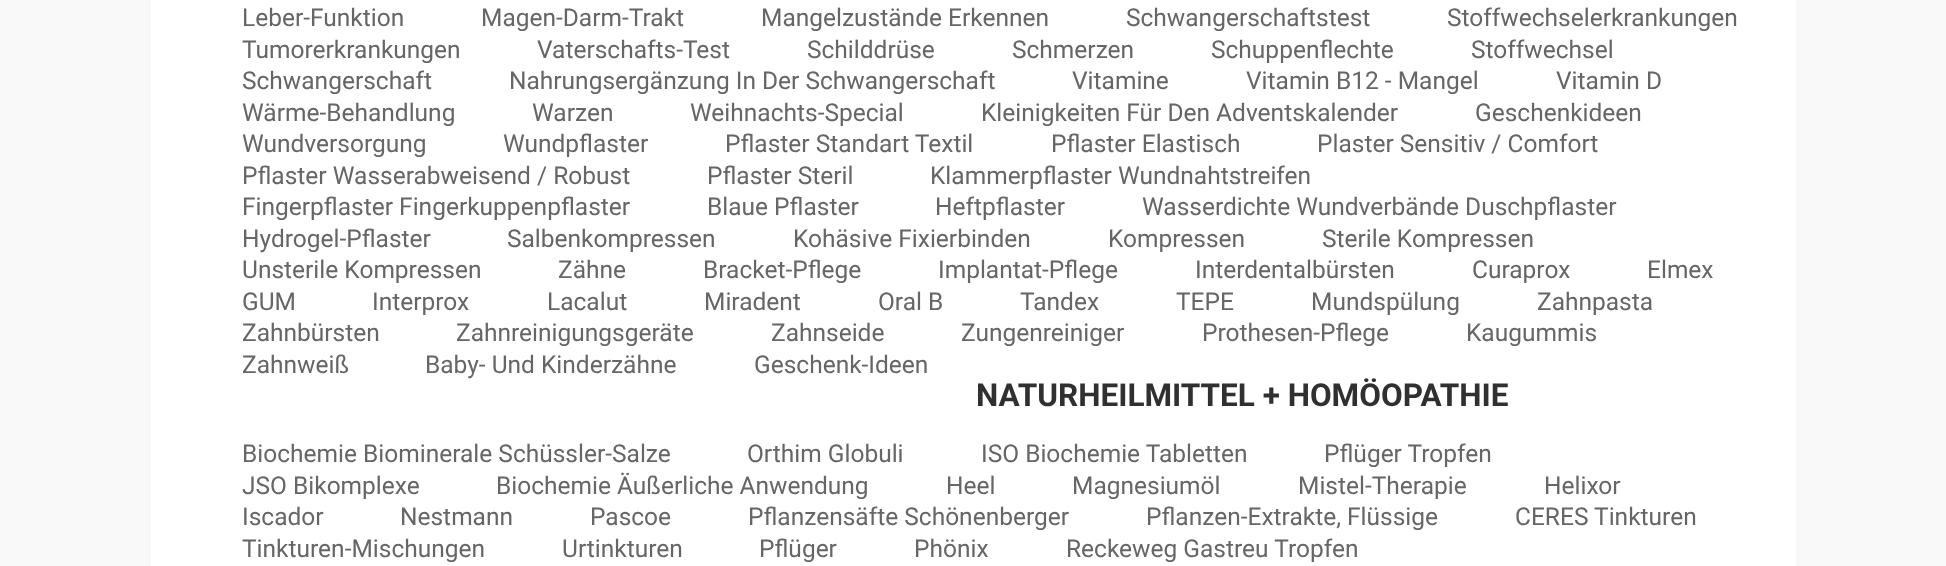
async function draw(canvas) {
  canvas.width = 1946;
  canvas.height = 566;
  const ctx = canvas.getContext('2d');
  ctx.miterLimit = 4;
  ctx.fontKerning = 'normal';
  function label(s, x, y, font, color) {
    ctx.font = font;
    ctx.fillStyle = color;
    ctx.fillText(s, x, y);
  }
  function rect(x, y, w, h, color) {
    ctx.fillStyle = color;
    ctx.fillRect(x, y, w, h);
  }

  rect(0, 0, 1946, 566, '#f9f9f9');
  rect(151, 0, 1645, 566, '#fff');
  label('Leber-Funktion', 242, 26, '24.5px Roboto', '#666');
  label('Magen-Darm-Trakt', 481, 26, '24.5px Roboto', '#666');
  label('Mangelzustände Erkennen', 761, 26, '24.5px Roboto', '#666');
  label('Schwangerschaftstest', 1126, 26, '24.5px Roboto', '#666');
  label('Stoffwechselerkrankungen', 1447, 26, '24.5px Roboto', '#666');
  label('Tumorerkrankungen', 242, 58, '24.5px Roboto', '#666');
  label('Vaterschafts-Test', 537, 58, '24.5px Roboto', '#666');
  label('Schilddrüse', 807, 58, '24.5px Roboto', '#666');
  label('Schmerzen', 1012, 58, '24.5px Roboto', '#666');
  label('Schuppenflechte', 1211, 58, '24.5px Roboto', '#666');
  label('Stoffwechsel', 1471, 58, '24.5px Roboto', '#666');
  label('Schwangerschaft', 242, 89, '24.5px Roboto', '#666');
  label('Nahrungsergänzung In Der Schwangerschaft', 509, 89, '24.5px Roboto', '#666');
  label('Vitamine', 1072, 89, '24.5px Roboto', '#666');
  label('Vitamin B12 - Mangel', 1246, 89, '24.5px Roboto', '#666');
  label('Vitamin D', 1556, 89, '24.5px Roboto', '#666');
  label('Wärme-Behandlung', 242, 121, '24.5px Roboto', '#666');
  label('Warzen', 532, 121, '24.5px Roboto', '#666');
  label('Weihnachts-Special', 690, 121, '24.5px Roboto', '#666');
  label('Kleinigkeiten Für Den Adventskalender', 981, 121, '24.5px Roboto', '#666');
  label('Geschenkideen', 1475, 121, '24.5px Roboto', '#666');
  label('Wundversorgung', 242, 152, '24.5px Roboto', '#666');
  label('Pflaster Standart Textil', 725, 152, '24.5px Roboto', '#666');
  label('Pflaster Elastisch', 1051, 152, '24.5px Roboto', '#666');
  label('Plaster Sensitiv / Comfort', 1317, 152, '24.5px Roboto', '#666');
  label('Pflaster Wasserabweisend / Robust', 242, 184, '24.5px Roboto', '#666');
  label('Pflaster Steril', 707, 184, '24.5px Roboto', '#666');
  label('Klammerpflaster Wundnahtstreifen', 930, 184, '24.5px Roboto', '#666');
  label('Fingerpflaster Fingerkuppenpflaster', 242, 215, '24.5px Roboto', '#666');
  label('Blaue Pflaster', 707, 215, '24.5px Roboto', '#666');
  label('Heftpflaster', 935, 215, '24.5px Roboto', '#666');
  label('Wundpflaster', 503, 152, '24.5px Roboto', '#666');
  label('Wasserdichte Wundverbände Duschpflaster', 1142, 215, '24.5px Roboto', '#666');
  label('Hydrogel-Pflaster', 242, 247, '24.5px Roboto', '#666');
  label('Sterile Kompressen', 1322, 247, '24.5px Roboto', '#666');
  label('Unsterile Kompressen', 242, 278, '24.5px Roboto', '#666');
  label('Kompressen', 1108, 247, '24.5px Roboto', '#666');
  label('Salbenkompressen', 507, 247, '24.5px Roboto', '#666');
  label('Kohäsive Fixierbinden', 793, 247, '24.5px Roboto', '#666');
  label('Curaprox', 1472, 278, '24.5px Roboto', '#666');
  label('Elmex', 1647, 278, '24.5px Roboto', '#666');
  label('GUM', 242, 310, '24.5px Roboto', '#666');
  label('Interprox', 372, 310, '24.5px Roboto', '#666');
  label('Lacalut', 547, 310, '24.5px Roboto', '#666');
  label('Miradent', 704, 310, '24.5px Roboto', '#666');
  label('Oral B', 878, 310, '24.5px Roboto', '#666');
  label('Tandex', 1020, 310, '24.5px Roboto', '#666');
  label('TEPE', 1176, 310, '24.5px Roboto', '#666');
  label('Interdentalbürsten', 1195, 278, '24.5px Roboto', '#666');
  label('Bracket-Pflege', 703, 278, '24.5px Roboto', '#666');
  label('Implantat-Pflege', 938, 278, '24.5px Roboto', '#666');
  label('Mundspülung', 1311, 310, '24.5px Roboto', '#666');
  label('Zahnpasta', 1537, 310, '24.5px Roboto', '#666');
  label('Zahnbürsten', 242, 341, '24.5px Roboto', '#666');
  label('Zahnreinigungsgeräte', 456, 341, '24.5px Roboto', '#666');
  label('Zahnseide', 771, 341, '24.5px Roboto', '#666');
  label('Zungenreiniger', 961, 341, '24.5px Roboto', '#666');
  label('Prothesen-Pflege', 1202, 341, '24.5px Roboto', '#666');
  label('Kaugummis', 1466, 341, '24.5px Roboto', '#666');
  label('Zahnweiß', 242, 373, '24.5px Roboto', '#666');
  label('Baby- Und Kinderzähne', 425, 373, '24.5px Roboto', '#666');
  label('Zähne', 558, 278, '24.5px Roboto', '#666');
  label('Geschenk-Ideen', 754, 373, '24.5px Roboto', '#666');
  label('NATURHEILMITTEL + HOMÖOPATHIE', 976, 406, 'bold 31.5px Roboto', '#303030');
  label('Orthim Globuli', 747, 462, '24.5px Roboto', '#666');
  label('ISO Biochemie Tabletten', 981, 462, '24.5px Roboto', '#666');
  label('Pflüger Tropfen', 1324, 462, '24.5px Roboto', '#666');
  label('JSO Bikomplexe', 242, 494, '24.5px Roboto', '#666');
  label('Biochemie Äußerliche Anwendung', 496, 494, '24.5px Roboto', '#666');
  label('Biochemie Biominerale Schüssler-Salze', 242, 462, '24.5px Roboto', '#666');
  label('Helixor', 1544, 494, '24.5px Roboto', '#666');
  label('Iscador', 242, 525, '24.5px Roboto', '#666');
  label('Mistel-Therapie', 1298, 494, '24.5px Roboto', '#666');
  label('Heel', 946, 494, '24.5px Roboto', '#666');
  label('Magnesiumöl', 1072, 494, '24.5px Roboto', '#666');
  label('CERES Tinkturen', 1515, 525, '24.5px Roboto', '#666');
  label('Tinkturen-Mischungen', 242, 557, '24.5px Roboto', '#666');
  label('Urtinkturen', 562, 557, '24.5px Roboto', '#666');
  label('Pflanzen-Extrakte, Flüssige', 1146, 525, '24.5px Roboto', '#666');
  label('Nestmann', 400, 525, '24.5px Roboto', '#666');
  label('Pascoe', 590, 525, '24.5px Roboto', '#666');
  label('Pflanzensäfte Schönenberger', 748, 525, '24.5px Roboto', '#666');
  label('Pflüger', 759, 557, '24.5px Roboto', '#666');
  label('Phönix', 914, 557, '24.5px Roboto', '#666');
  label('Reckeweg Gastreu Tropfen', 1066, 557, '24.5px Roboto', '#666');
}

draw(document.querySelector('canvas'));
